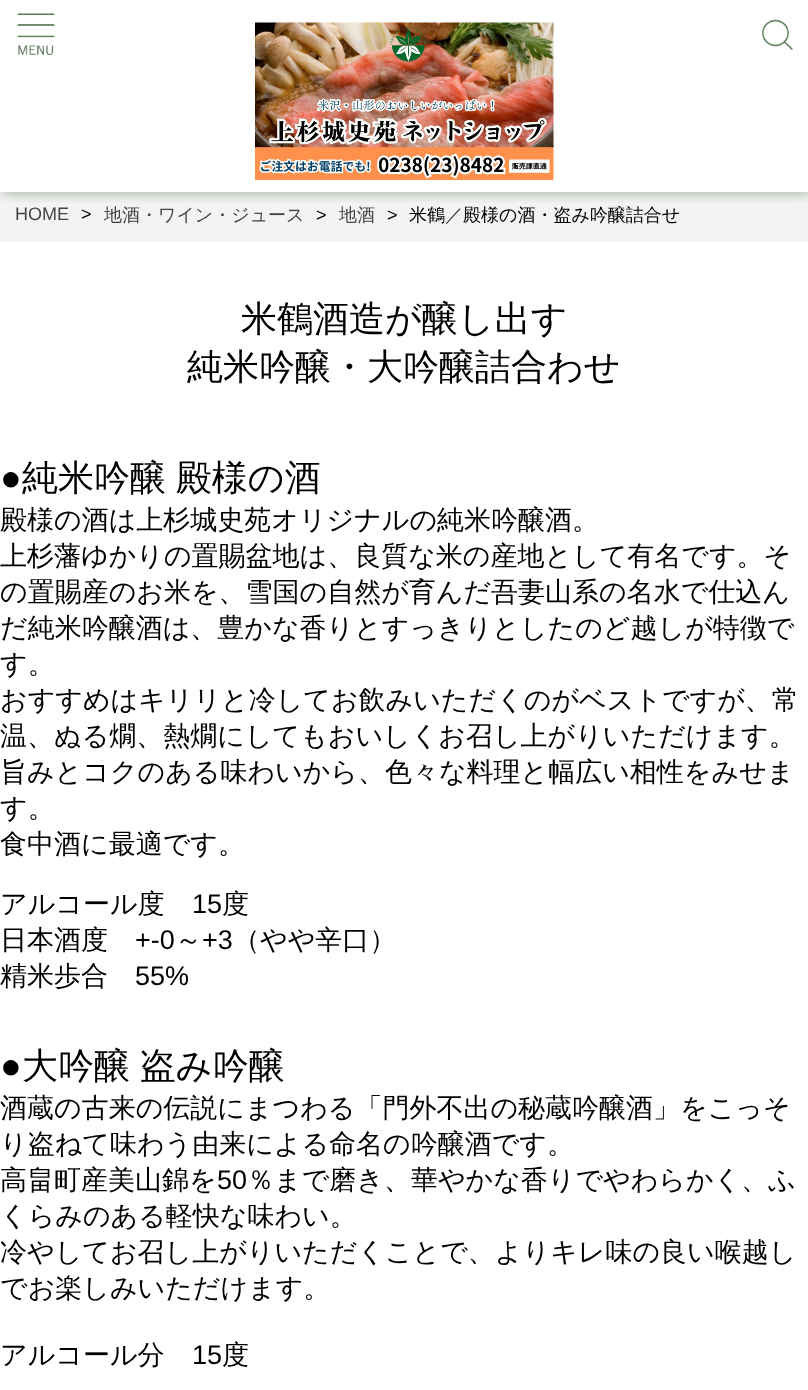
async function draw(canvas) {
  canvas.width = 808;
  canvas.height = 1390;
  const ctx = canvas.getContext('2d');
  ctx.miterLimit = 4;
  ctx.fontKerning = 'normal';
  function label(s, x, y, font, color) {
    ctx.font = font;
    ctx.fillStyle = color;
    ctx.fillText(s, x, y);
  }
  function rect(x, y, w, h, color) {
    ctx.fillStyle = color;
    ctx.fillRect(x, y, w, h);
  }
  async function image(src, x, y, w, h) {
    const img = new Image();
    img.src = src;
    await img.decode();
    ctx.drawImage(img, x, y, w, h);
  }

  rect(0, 0, 808, 1390, '#fff');
  rect(0, 192, 808, 50, '#f3f3f3');
  ctx.save();
  ctx.beginPath();
  ctx.rect(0, 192, 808, 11);
  ctx.clip();
  ctx.fillStyle = '#0933084d';
  ctx.filter = 'blur(6px)';
  ctx.beginPath();
  ctx.rect(2, 2, 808, 192);
  ctx.fill();
  ctx.filter = 'none';
  ctx.restore();
  await image('assets/img1.png', 17, 13, 38, 42);
  await image('assets/img2.png', 762, 19, 31, 32);
  await image('assets/img3.png', 255, 22, 299, 158);
  label('HOME', 15, 220, '18px Liberation Sans', '#444');
  label('>', 81, 220, '18px Liberation Sans', '#000');
  label('地酒・ワイン・ジュース', 104, 221, '500 18px WenQuanYi Zen Hei', '#444');
  label('>', 316, 221, '18px Liberation Sans', '#000');
  label('地酒', 339, 221, '500 18px WenQuanYi Zen Hei', '#444');
  label('>', 387, 221, '18px Liberation Sans', '#000');
  label('米鶴／殿様の酒・盗み吟醸詰合せ', 409, 221, '500 18px WenQuanYi Zen Hei', '#000');
  label('米鶴酒造が醸し出す', 241, 331, '500 36px WenQuanYi Zen Hei', '#000');
  label('純米吟醸・大吟醸詰合わせ', 187, 379, '500 36px WenQuanYi Zen Hei', '#000');
  label('●', 0, 490, '36px Liberation Sans', '#000');
  ctx.wordSpacing = '-1px';
  label('純米吟醸 殿様の酒', 22, 490, '500 36px WenQuanYi Zen Hei', '#000');
  ctx.wordSpacing = '0px';
  label('殿様の酒は上杉城史苑オリジナルの純米吟醸酒。', 0, 529, '500 27px WenQuanYi Zen Hei', '#000');
  label('上杉藩ゆかりの置賜盆地は、良質な米の産地として有名です。そ', 0, 565, '500 27px WenQuanYi Zen Hei', '#000');
  label('の置賜産のお米を、雪国の自然が育んだ吾妻山系の名水で仕込ん', 0, 601, '500 27px WenQuanYi Zen Hei', '#000');
  label('だ純米吟醸酒は、豊かな香りとすっきりとしたのど越しが特徴で', 0, 637, '500 27px WenQuanYi Zen Hei', '#000');
  label('す。', 0, 673, '500 27px WenQuanYi Zen Hei', '#000');
  label('おすすめはキリリと冷してお飲みいただくのがベストですが、常', 0, 709, '500 27px WenQuanYi Zen Hei', '#000');
  label('温、ぬる燗、熱燗にしてもおいしくお召し上がりいただけます。', 0, 745, '500 27px WenQuanYi Zen Hei', '#000');
  label('旨みとコクのある味わいから、色々な料理と幅広い相性をみせま', 0, 781, '500 27px WenQuanYi Zen Hei', '#000');
  label('す。', 0, 817, '500 27px WenQuanYi Zen Hei', '#000');
  label('食中酒に最適です。', 0, 853, '500 27px WenQuanYi Zen Hei', '#000');
  label('アルコール度', 0, 913, '500 27px WenQuanYi Zen Hei', '#000');
  label('15', 192, 913, '27px Liberation Sans', '#000');
  label('度', 222, 913, '500 27px WenQuanYi Zen Hei', '#000');
  label('日本酒度', 0, 949, '500 27px WenQuanYi Zen Hei', '#000');
  label('+-0', 135, 949, '27px Liberation Sans', '#000');
  label('～', 175, 949, '500 27px WenQuanYi Zen Hei', '#000');
  label('+3', 202, 949, '27px Liberation Sans', '#000');
  label('（やや辛口）', 233, 949, '500 27px WenQuanYi Zen Hei', '#000');
  label('精米歩合', 0, 985, '500 27px WenQuanYi Zen Hei', '#000');
  label('55%', 135, 985, '27px Liberation Sans', '#000');
  label('●', 0, 1078, 'bold 36px Liberation Sans', '#000');
  ctx.wordSpacing = '-1px';
  label('大吟醸 盗み吟醸', 22, 1078, '500 36px WenQuanYi Zen Hei', '#000');
  ctx.wordSpacing = '0px';
  label('酒蔵の古来の伝説にまつわる「門外不出の秘蔵吟醸酒」をこっそ', 0, 1117, '500 27px WenQuanYi Zen Hei', '#000');
  label('り盗ねて味わう由来による命名の吟醸酒です。', 0, 1153, '500 27px WenQuanYi Zen Hei', '#000');
  label('高畠町産美山錦を', 0, 1189, '500 27px WenQuanYi Zen Hei', '#000');
  label('50', 217, 1189, '27px Liberation Sans', '#000');
  label('％まで磨き、華やかな香りでやわらかく、ふ', 247, 1189, '500 27px WenQuanYi Zen Hei', '#000');
  label('くらみのある軽快な味わい。', 0, 1225, '500 27px WenQuanYi Zen Hei', '#000');
  label('冷やしてお召し上がりいただくことで、よりキレ味の良い喉越し', 0, 1261, '500 27px WenQuanYi Zen Hei', '#000');
  label('でお楽しみいただけます。', 0, 1297, '500 27px WenQuanYi Zen Hei', '#000');
  label('アルコール分', 0, 1364, '500 27px WenQuanYi Zen Hei', '#000');
  label('15', 192, 1364, '27px Liberation Sans', '#000');
  label('度', 222, 1364, '500 27px WenQuanYi Zen Hei', '#000');
}

draw(document.querySelector('canvas'));
